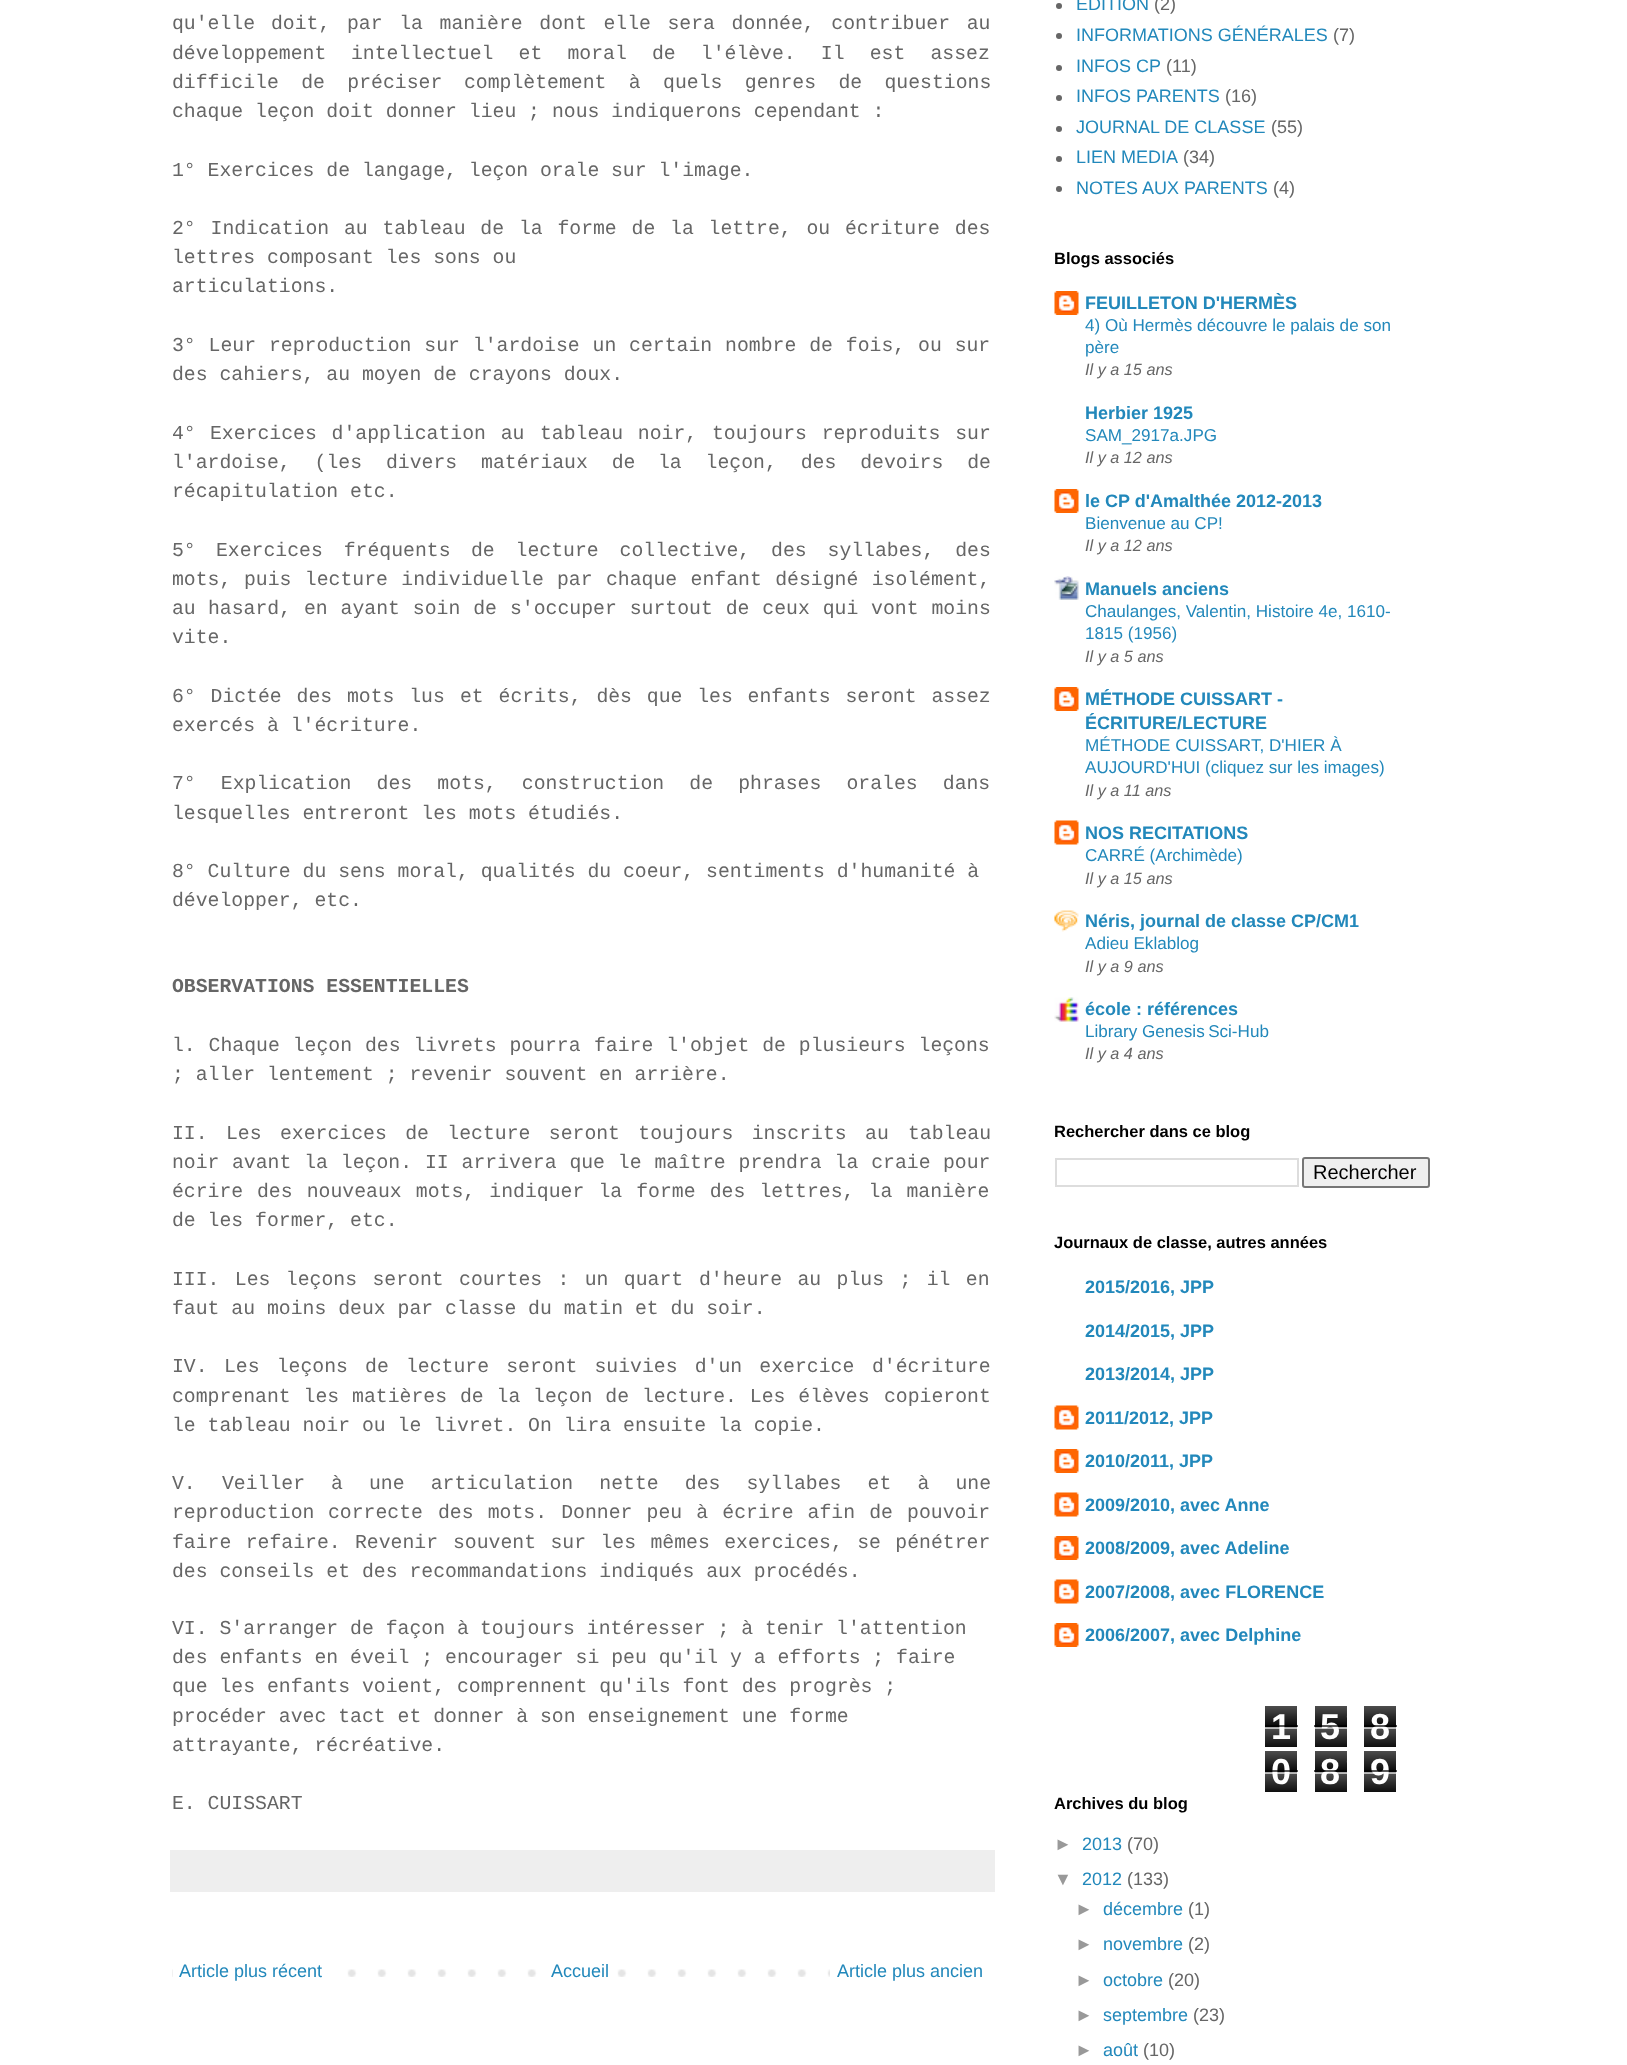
async function draw(canvas) {
  canvas.width = 1627;
  canvas.height = 2065;
  const ctx = canvas.getContext('2d');
  ctx.miterLimit = 4;
  ctx.fontKerning = 'normal';
  function label(s, x, y, font, color) {
    ctx.font = font;
    ctx.fillStyle = color;
    ctx.fillText(s, x, y);
  }
  function rect(x, y, w, h, color) {
    ctx.fillStyle = color;
    ctx.fillRect(x, y, w, h);
  }
  async function image(src, x, y, w, h) {
    const img = new Image();
    img.src = src;
    await img.decode();
    ctx.drawImage(img, x, y, w, h);
  }

  rect(0, 0, 1627, 2065, '#fff');
  label('qu\'elle', 172, 29, '19.8px Liberation Mono', '#666');
  ctx.wordSpacing = '4.75px';
  label('doit, par la manière dont elle sera donnée, contribuer au', 271, 29, '19.8px Liberation Mono', '#666');
  ctx.wordSpacing = '0px';
  label('développement', 172, 59, '19.8px Liberation Mono', '#666');
  ctx.wordSpacing = '13.25px';
  label('intellectuel et moral de l\'élève. Il est assez', 351, 59, '19.8px Liberation Mono', '#666');
  ctx.wordSpacing = '10.5px';
  label('difficile de préciser', 172, 88, '19.8px Liberation Mono', '#666');
  label('complètement à quels genres de questions', 464, 88, '19.8px Liberation Mono', '#666');
  ctx.wordSpacing = '0px';
  label('chaque leçon doit donner lieu ;', 172, 117, '19.8px Liberation Mono', '#666');
  label('nous indiquerons cependant :', 552, 117, '19.8px Liberation Mono', '#666');
  label('1° Exercices de langage, leçon orale', 172, 176, '19.8px Liberation Mono', '#666');
  label('sur l\'image.', 611, 176, '19.8px Liberation Mono', '#666');
  ctx.wordSpacing = '2.9px';
  label('2° Indication au tableau de la forme de la lettre, ou', 172, 234, '19.8px Liberation Mono', '#666');
  ctx.wordSpacing = '3px';
  label('écriture des', 845, 234, '19.8px Liberation Mono', '#666');
  ctx.wordSpacing = '0px';
  label('lettres composant les sons ou', 172, 263, '19.8px Liberation Mono', '#666');
  label('articulations.', 172, 292, '19.8px Liberation Mono', '#666');
  ctx.wordSpacing = '1px';
  label('3° Leur', 172, 351, '19.8px Liberation Mono', '#666');
  label('reproduction sur l\'ardoise un certain nombre de fois, ou sur', 269, 351, '19.8px Liberation Mono', '#666');
  ctx.wordSpacing = '0px';
  label('des cahiers, au moyen de crayons doux.', 172, 380, '19.8px Liberation Mono', '#666');
  label('4°', 172, 439, '19.8px Liberation Mono', '#666');
  ctx.wordSpacing = '2.9px';
  label('Exercices d\'application au', 210, 439, '19.8px Liberation Mono', '#666');
  label('tableau noir, toujours reproduits sur', 540, 439, '19.8px Liberation Mono', '#666');
  ctx.wordSpacing = '12px';
  label('l\'ardoise, (les divers matériaux de', 172, 468, '19.8px Liberation Mono', '#666');
  label('la leçon, des devoirs de', 658, 468, '19.8px Liberation Mono', '#666');
  ctx.wordSpacing = '0px';
  label('récapitulation etc.', 172, 497, '19.8px Liberation Mono', '#666');
  label('5°', 172, 556, '19.8px Liberation Mono', '#666');
  ctx.wordSpacing = '9px';
  label('Exercices fréquents', 216, 556, '19.8px Liberation Mono', '#666');
  label('de lecture collective, des syllabes, des', 471, 556, '19.8px Liberation Mono', '#666');
  ctx.wordSpacing = '0px';
  label('mots,', 172, 585, '19.8px Liberation Mono', '#666');
  ctx.wordSpacing = '1.5px';
  label('puis lecture individuelle', 244, 585, '19.8px Liberation Mono', '#666');
  label('par chaque enfant désigné isolément,', 557, 585, '19.8px Liberation Mono', '#666');
  ctx.wordSpacing = '0px';
  label('au', 172, 614, '19.8px Liberation Mono', '#666');
  ctx.wordSpacing = '1px';
  label('hasard, en ayant soin de', 208, 614, '19.8px Liberation Mono', '#666');
  label('s\'occuper surtout de ceux qui vont moins', 510, 614, '19.8px Liberation Mono', '#666');
  ctx.wordSpacing = '0px';
  label('vite.', 172, 643, '19.8px Liberation Mono', '#666');
  ctx.wordSpacing = '2.9px';
  label('6° Dictée des mots lus', 172, 702, '19.8px Liberation Mono', '#666');
  label('et écrits, dès que les enfants seront assez', 460, 702, '19.8px Liberation Mono', '#666');
  ctx.wordSpacing = '0px';
  label('exercés à l\'écriture.', 172, 731, '19.8px Liberation Mono', '#666');
  ctx.wordSpacing = '13.25px';
  label('7° Explication des mots, construction de phrases orales dans', 172, 789, '19.8px Liberation Mono', '#666');
  ctx.wordSpacing = '0px';
  label('lesquelles entreront les mots étudiés.', 172, 819, '19.8px Liberation Mono', '#666');
  label('8° Culture du sens moral, qualités du', 172, 877, '19.8px Liberation Mono', '#666');
  label('coeur, sentiments d\'humanité à', 623, 877, '19.8px Liberation Mono', '#666');
  label('développer, etc.', 172, 906, '19.8px Liberation Mono', '#666');
  label('OBSERVATIONS ESSENTIELLES', 172, 992, 'bold 19.8px Liberation Mono', '#666');
  ctx.wordSpacing = '1px';
  label('l. Chaque leçon des livrets pourra', 172, 1051, '19.8px Liberation Mono', '#666');
  label('faire l\'objet de plusieurs leçons', 594, 1051, '19.8px Liberation Mono', '#666');
  ctx.wordSpacing = '0px';
  label('; aller lentement ; revenir souvent', 172, 1080, '19.8px Liberation Mono', '#666');
  label('en arrière.', 599, 1080, '19.8px Liberation Mono', '#666');
  label('II.', 172, 1139, '19.8px Liberation Mono', '#666');
  ctx.wordSpacing = '6.5px';
  label('Les exercices de lecture seront toujours inscrits au', 226, 1139, '19.8px Liberation Mono', '#666');
  ctx.wordSpacing = '0px';
  label('tableau', 908, 1139, '19.8px Liberation Mono', '#666');
  label('noir', 172, 1168, '19.8px Liberation Mono', '#666');
  ctx.wordSpacing = '1px';
  label('avant la leçon. II arrivera que le maître prendra la craie', 232, 1168, '19.8px Liberation Mono', '#666');
  ctx.wordSpacing = '0px';
  label('pour', 943, 1168, '19.8px Liberation Mono', '#666');
  label('écrire', 172, 1197, '19.8px Liberation Mono', '#666');
  ctx.wordSpacing = '2.25px';
  label('des nouveaux mots, indiquer la forme des lettres, la manière', 257, 1197, '19.8px Liberation Mono', '#666');
  ctx.wordSpacing = '0px';
  label('de les former, etc.', 172, 1226, '19.8px Liberation Mono', '#666');
  ctx.wordSpacing = '3.5px';
  label('III. Les leçons seront courtes : un quart', 172, 1285, '19.8px Liberation Mono', '#666');
  label('d\'heure au plus ; il en', 699, 1285, '19.8px Liberation Mono', '#666');
  ctx.wordSpacing = '0px';
  label('faut au moins deux par classe du matin et du soir.', 172, 1314, '19.8px Liberation Mono', '#666');
  label('IV.', 172, 1372, '19.8px Liberation Mono', '#666');
  ctx.wordSpacing = '5.25px';
  label('Les leçons de lecture seront suivies d\'un exercice', 224, 1372, '19.8px Liberation Mono', '#666');
  ctx.wordSpacing = '0px';
  label('d\'écriture', 872, 1372, '19.8px Liberation Mono', '#666');
  ctx.wordSpacing = '1px';
  label('comprenant les matières de la leçon de lecture. Les élèves', 172, 1402, '19.8px Liberation Mono', '#666');
  ctx.wordSpacing = '0px';
  label('copieront', 884, 1402, '19.8px Liberation Mono', '#666');
  label('le tableau noir ou le livret. On lira ensuite la copie.', 172, 1431, '19.8px Liberation Mono', '#666');
  label('V.', 172, 1489, '19.8px Liberation Mono', '#666');
  label('Veiller', 222, 1489, '19.8px Liberation Mono', '#666');
  ctx.wordSpacing = '14.25px';
  label('à une articulation nette des syllabes et à une', 331, 1489, '19.8px Liberation Mono', '#666');
  ctx.wordSpacing = '0px';
  label('reproduction', 172, 1518, '19.8px Liberation Mono', '#666');
  label('correcte', 328, 1518, '19.8px Liberation Mono', '#666');
  ctx.wordSpacing = '2.25px';
  label('des mots. Donner peu à écrire afin de pouvoir', 438, 1518, '19.8px Liberation Mono', '#666');
  ctx.wordSpacing = '2.5px';
  label('faire refaire.', 172, 1548, '19.8px Liberation Mono', '#666');
  ctx.wordSpacing = '0px';
  label('Revenir', 355, 1548, '19.8px Liberation Mono', '#666');
  ctx.wordSpacing = '2.5px';
  label('souvent sur les mêmes exercices, se pénétrer', 453, 1548, '19.8px Liberation Mono', '#666');
  ctx.wordSpacing = '0px';
  label('des conseils et des recommandations indiqués aux procédés.', 172, 1577, '19.8px Liberation Mono', '#666');
  label('VI. S\'arranger de façon à', 172, 1634, '19.8px Liberation Mono', '#666');
  label('toujours intéresser ; à tenir l\'attention', 480, 1634, '19.8px Liberation Mono', '#666');
  label('des enfants en éveil ; encourager si peu qu\'il y a efforts ; faire', 172, 1663, '19.8px Liberation Mono', '#666');
  label('que les enfants voient, comprennent qu\'ils font des progrès ;', 172, 1692, '19.8px Liberation Mono', '#666');
  label('procéder avec tact et donner à son enseignement une forme', 172, 1722, '19.8px Liberation Mono', '#666');
  label('attrayante, récréative.', 172, 1751, '19.8px Liberation Mono', '#666');
  label('E. CUISSART', 172, 1809, '19.8px Liberation Mono', '#666');
  rect(170, 1850, 825, 42, '#eee');
  await image('assets/img1.png', 172, 1969, 658, 8);
  rect(173, 1969, 154, 8, '#fff');
  label('Article plus récent', 179, 1977, '18px Liberation Sans', '#28b');
  rect(557, 1969, 40, 8, '#fff');
  label('Accueil', 551, 1977, '18px Liberation Sans', '#28b');
  label('Article plus ancien', 837, 1977, '18px Liberation Sans', '#28b');
  ctx.fillStyle = '#666';
  ctx.beginPath();
  ctx.arc(1059, 6, 3, 0, 2 * Math.PI);
  ctx.fill();
  label('ÉDITION', 1076, 10, '18px Liberation Sans', '#28b');
  label('(2)', 1154, 10, '18px Liberation Sans', '#666');
  ctx.beginPath();
  ctx.arc(1059, 36, 3, 0, 2 * Math.PI);
  ctx.fill();
  label('INFORMATIONS GÉNÉRALES', 1076, 41, '18px Liberation Sans', '#28b');
  label('(7)', 1333, 41, '18px Liberation Sans', '#666');
  ctx.beginPath();
  ctx.arc(1059, 68, 3, 0, 2 * Math.PI);
  ctx.fill();
  label('INFOS CP', 1076, 72, '18px Liberation Sans', '#28b');
  label('(11)', 1166, 72, '18px Liberation Sans', '#666');
  ctx.beginPath();
  ctx.arc(1059, 98, 3, 0, 2 * Math.PI);
  ctx.fill();
  label('INFOS PARENTS', 1076, 102, '18px Liberation Sans', '#28b');
  label('(16)', 1225, 102, '18px Liberation Sans', '#666');
  ctx.beginPath();
  ctx.arc(1059, 129, 3, 0, 2 * Math.PI);
  ctx.fill();
  label('JOURNAL DE CLASSE', 1076, 133, '18px Liberation Sans', '#28b');
  label('(55)', 1271, 133, '18px Liberation Sans', '#666');
  ctx.beginPath();
  ctx.arc(1059, 159, 3, 0, 2 * Math.PI);
  ctx.fill();
  label('LIEN MEDIA', 1076, 163, '18px Liberation Sans', '#28b');
  label('(34)', 1183, 163, '18px Liberation Sans', '#666');
  ctx.beginPath();
  ctx.arc(1059, 189, 3, 0, 2 * Math.PI);
  ctx.fill();
  label('NOTES AUX PARENTS', 1076, 194, '18px Liberation Sans', '#28b');
  label('(4)', 1273, 194, '18px Liberation Sans', '#666');
  label('Blogs associés', 1054, 264, 'bold 16.5px Liberation Sans', '#000');
  await image('assets/img2.png', 1054, 291, 25, 24);
  label('FEUILLETON D\'HERMÈS', 1085, 309, 'bold 18px Liberation Sans', '#28b');
  label('4) Où Hermès découvre le palais de son', 1085, 331, '17.1px Liberation Sans', '#28b');
  label('père', 1085, 353, '17.1px Liberation Sans', '#28b');
  label('Il y a 15 ans', 1085, 375, 'italic 16.25px Liberation Sans', '#666');
  label('Herbier 1925', 1085, 419, 'bold 18px Liberation Sans', '#28b');
  label('SAM_2917a.JPG', 1085, 441, '17.1px Liberation Sans', '#28b');
  label('Il y a 12 ans', 1085, 463, 'italic 16.25px Liberation Sans', '#666');
  await image('assets/img2.png', 1054, 489, 25, 24);
  label('le CP d\'Amalthée 2012-2013', 1085, 507, 'bold 18px Liberation Sans', '#28b');
  label('Bienvenue au CP!', 1085, 529, '17.1px Liberation Sans', '#28b');
  label('Il y a 12 ans', 1085, 551, 'italic 16.25px Liberation Sans', '#666');
  await image('assets/img3.png', 1054, 576, 25, 24);
  label('Manuels anciens', 1085, 595, 'bold 18px Liberation Sans', '#28b');
  label('Chaulanges, Valentin, Histoire 4e, 1610-', 1085, 617, '17.1px Liberation Sans', '#28b');
  label('1815 (1956)', 1085, 639, '17.1px Liberation Sans', '#28b');
  label('Il y a 5 ans', 1085, 662, 'italic 16.25px Liberation Sans', '#666');
  await image('assets/img2.png', 1054, 687, 25, 24);
  label('MÉTHODE CUISSART -', 1085, 705, 'bold 18px Liberation Sans', '#28b');
  label('ÉCRITURE/LECTURE', 1085, 729, 'bold 18px Liberation Sans', '#28b');
  label('MÉTHODE CUISSART, D\'HIER À', 1085, 751, '17.1px Liberation Sans', '#28b');
  label('AUJOURD\'HUI (cliquez sur les images)', 1085, 773, '17.1px Liberation Sans', '#28b');
  label('Il y a 11 ans', 1085, 796, 'italic 16.25px Liberation Sans', '#666');
  await image('assets/img4.png', 1054, 820, 25, 25);
  label('NOS RECITATIONS', 1085, 839, 'bold 18px Liberation Sans', '#28b');
  label('CARRÉ (Archimède)', 1085, 861, '17.1px Liberation Sans', '#28b');
  label('Il y a 15 ans', 1085, 884, 'italic 16.25px Liberation Sans', '#666');
  await image('assets/img5.png', 1054, 910, 25, 22);
  label('Néris, journal de classe CP/CM1', 1085, 927, 'bold 18px Liberation Sans', '#28b');
  label('Adieu Eklablog', 1085, 949, '17.1px Liberation Sans', '#28b');
  label('Il y a 9 ans', 1085, 972, 'italic 16.25px Liberation Sans', '#666');
  await image('assets/img6.png', 1054, 997, 25, 25);
  label('école : références', 1085, 1015, 'bold 18px Liberation Sans', '#28b');
  label('Library Genesis Sci-Hub', 1085, 1037, '17.1px Liberation Sans', '#28b');
  label('Il y a 4 ans', 1085, 1059, 'italic 16.25px Liberation Sans', '#666');
  label('Rechercher dans ce blog', 1054, 1137, 'bold 16.5px Liberation Sans', '#000');
  ctx.strokeStyle = '#ddd';
  ctx.lineWidth = 2;
  ctx.strokeRect(1056, 1159, 242, 27);
  ctx.fillStyle = '#efefef';
  ctx.beginPath();
  ctx.roundRect(1303, 1158, 126, 29, 2);
  ctx.fill();
  ctx.strokeStyle = '#767676';
  ctx.stroke();
  label('Rechercher', 1313, 1179, '20px Liberation Sans', '#000');
  label('Journaux de classe, autres années', 1054, 1248, 'bold 16.5px Liberation Sans', '#000');
  label('2015/2016, JPP', 1085, 1293, 'bold 18px Liberation Sans', '#28b');
  label('2014/2015, JPP', 1085, 1337, 'bold 18px Liberation Sans', '#28b');
  label('2013/2014, JPP', 1085, 1380, 'bold 18px Liberation Sans', '#28b');
  await image('assets/img4.png', 1054, 1405, 25, 25);
  label('2011/2012, JPP', 1085, 1424, 'bold 18px Liberation Sans', '#28b');
  await image('assets/img2.png', 1054, 1449, 25, 24);
  label('2010/2011, JPP', 1085, 1467, 'bold 18px Liberation Sans', '#28b');
  await image('assets/img4.png', 1054, 1492, 25, 25);
  label('2009/2010, avec Anne', 1085, 1511, 'bold 18px Liberation Sans', '#28b');
  await image('assets/img2.png', 1054, 1536, 25, 24);
  label('2008/2009, avec Adeline', 1085, 1554, 'bold 18px Liberation Sans', '#28b');
  await image('assets/img4.png', 1054, 1579, 25, 25);
  label('2007/2008, avec FLORENCE', 1085, 1598, 'bold 18px Liberation Sans', '#28b');
  await image('assets/img2.png', 1054, 1623, 25, 24);
  label('2006/2007, avec Delphine', 1085, 1641, 'bold 18px Liberation Sans', '#28b');
  await image('assets/img7.png', 1265, 1706, 32, 41);
  label('1', 1271, 1739, 'bold 36px Liberation Sans', '#fff');
  rect(1265, 1725, 33, 2, '#000000a6');
  rect(1265, 1727, 33, 2, '#ffffffa6');
  await image('assets/img8.png', 1315, 1706, 32, 41);
  label('5', 1320, 1739, 'bold 36px Liberation Sans', '#fff');
  rect(1314, 1725, 33, 2, '#000000a6');
  rect(1314, 1727, 33, 2, '#ffffffa6');
  await image('assets/img7.png', 1364, 1706, 32, 41);
  label('8', 1370, 1739, 'bold 36px Liberation Sans', '#fff');
  rect(1364, 1725, 33, 2, '#000000a6');
  rect(1364, 1727, 33, 2, '#ffffffa6');
  await image('assets/img7.png', 1265, 1751, 32, 41);
  label('0', 1271, 1784, 'bold 36px Liberation Sans', '#fff');
  rect(1265, 1770, 33, 2, '#000000a6');
  rect(1265, 1772, 33, 2, '#ffffffa6');
  await image('assets/img8.png', 1315, 1751, 32, 41);
  label('8', 1320, 1784, 'bold 36px Liberation Sans', '#fff');
  rect(1314, 1770, 33, 2, '#000000a6');
  rect(1314, 1772, 33, 2, '#ffffffa6');
  await image('assets/img7.png', 1364, 1751, 32, 41);
  label('9', 1370, 1784, 'bold 36px Liberation Sans', '#fff');
  rect(1364, 1770, 33, 2, '#000000a6');
  rect(1364, 1772, 33, 2, '#ffffffa6');
  label('Archives du blog', 1054, 1809, 'bold 16.5px Liberation Sans', '#000');
  label('►', 1054, 1850, '18px Liberation Sans', '#999');
  label('2013', 1082, 1850, '18px Liberation Sans', '#28b');
  label('(70)', 1127, 1850, '18px Liberation Sans', '#666');
  label('▼', 1054, 1885, '18px Liberation Sans', '#999');
  label('2012', 1082, 1885, '18px Liberation Sans', '#28b');
  label('(133)', 1127, 1885, '18px Liberation Sans', '#666');
  label('►', 1075, 1915, '18px Liberation Sans', '#999');
  label('décembre', 1103, 1915, '18px Liberation Sans', '#28b');
  label('(1)', 1188, 1915, '18px Liberation Sans', '#666');
  label('►', 1075, 1950, '18px Liberation Sans', '#999');
  label('novembre', 1103, 1950, '18px Liberation Sans', '#28b');
  label('(2)', 1188, 1950, '18px Liberation Sans', '#666');
  label('►', 1075, 1986, '18px Liberation Sans', '#999');
  label('octobre', 1103, 1986, '18px Liberation Sans', '#28b');
  label('(20)', 1168, 1986, '18px Liberation Sans', '#666');
  label('►', 1075, 2021, '18px Liberation Sans', '#999');
  label('septembre', 1103, 2021, '18px Liberation Sans', '#28b');
  label('(23)', 1193, 2021, '18px Liberation Sans', '#666');
  label('►', 1075, 2056, '18px Liberation Sans', '#999');
  label('août', 1103, 2056, '18px Liberation Sans', '#28b');
  label('(10)', 1143, 2056, '18px Liberation Sans', '#666');
}

draw(document.querySelector('canvas'));
